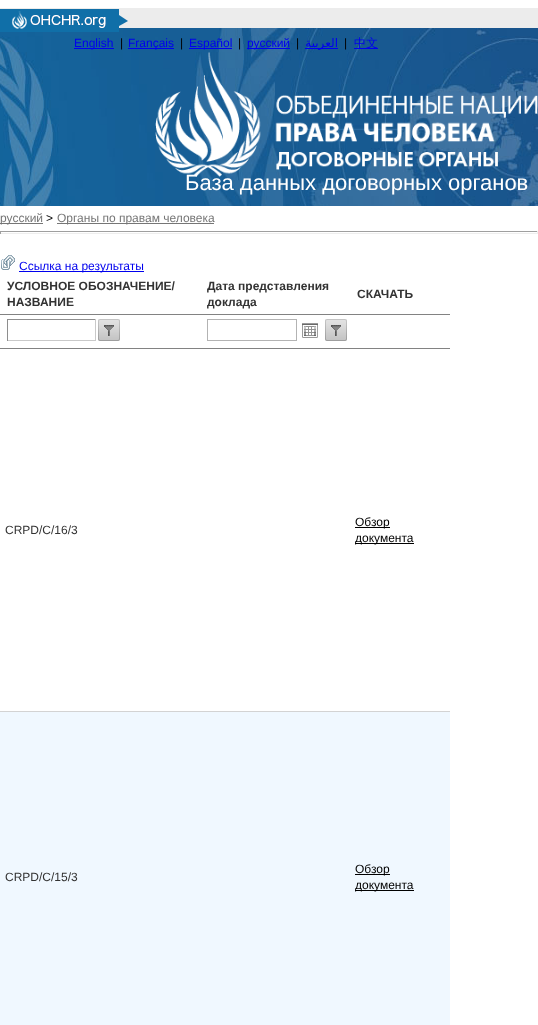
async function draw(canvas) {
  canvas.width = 538;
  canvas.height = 1025;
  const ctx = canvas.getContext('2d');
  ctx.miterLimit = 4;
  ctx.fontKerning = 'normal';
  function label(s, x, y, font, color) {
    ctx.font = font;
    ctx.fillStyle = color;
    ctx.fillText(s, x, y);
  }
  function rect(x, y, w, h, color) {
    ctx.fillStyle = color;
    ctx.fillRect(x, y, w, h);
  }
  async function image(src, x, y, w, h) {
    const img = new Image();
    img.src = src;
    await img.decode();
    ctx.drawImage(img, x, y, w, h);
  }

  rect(0, 0, 538, 1025, '#fff');
  rect(0, 8, 538, 20, '#ececec');
  await image('assets/img2.png', 0, 28, 538, 178);
  await image('assets/img1.png', 0, 9, 128, 23);
  rect(74, 48, 40, 1, '#00e');
  label('English', 74, 47, '12px Liberation Sans', '#00e');
  ctx.letterSpacing = '-1px';
  label('|', 120, 47, '12px Liberation Sans', '#000');
  rect(128, 48, 46, 1, '#00e');
  ctx.letterSpacing = '0px';
  label('Français', 128, 47, '12px Liberation Sans', '#00e');
  ctx.letterSpacing = '-1px';
  label('|', 180, 47, '12px Liberation Sans', '#000');
  rect(189, 48, 43, 1, '#00e');
  ctx.letterSpacing = '0px';
  label('Español', 189, 47, '12px Liberation Sans', '#00e');
  ctx.letterSpacing = '-1px';
  label('|', 238, 47, '12px Liberation Sans', '#000');
  rect(247, 48, 43, 1, '#00e');
  ctx.letterSpacing = '0px';
  label('русский', 247, 47, '12px Liberation Sans', '#00e');
  ctx.letterSpacing = '-1px';
  label('|', 296, 47, '12px Liberation Sans', '#000');
  rect(305, 48, 33, 1, '#00e');
  ctx.letterSpacing = '0px';
  ctx.direction = 'rtl';
  label('العربية', 338, 47, '12px DejaVu Sans', '#00e');
  ctx.letterSpacing = '-1px';
  ctx.direction = 'ltr';
  label('|', 344, 47, '12px Liberation Sans', '#000');
  rect(354, 48, 24, 1, '#00e');
  ctx.letterSpacing = '0px';
  label('中文', 354, 47, '500 12px WenQuanYi Zen Hei', '#00e');
  await image('assets/img3.png', 155, 52, 383, 125);
  label('База данных договорных органов', 185, 190, '22px Liberation Sans', '#fff');
  rect(0, 223, 43, 1, '#767676');
  label('русский', 0, 222, '12px Liberation Sans', '#767676');
  label('>', 46, 222, '12px Liberation Sans', '#000');
  rect(57, 223, 157, 1, '#767676');
  label('Органы по правам человека', 57, 222, '12px Liberation Sans', '#767676');
  rect(0, 231, 538, 1, '#9f9f9f');
  rect(537, 231, 1, 3, '#eee');
  rect(0, 233, 538, 1, '#eee');
  rect(0, 231, 1, 3, '#9f9f9f');
  await image('assets/img4.png', 1, 255, 14, 15);
  rect(19, 271, 125, 1, '#00e');
  label('Ссылка на результаты', 19, 270, '12px Liberation Sans', '#00e');
  rect(0, 314, 450, 1, '#828282');
  label('УСЛОВНОЕ ОБОЗНАЧЕНИЕ/', 7, 290, 'bold 12px Liberation Sans', '#333');
  label('НАЗВАНИЕ', 7, 306, 'bold 12px Liberation Sans', '#333');
  label('Дата представления', 207, 290, 'bold 12px Liberation Sans', '#333');
  label('доклада', 207, 306, 'bold 12px Liberation Sans', '#333');
  label('СКАЧАТЬ', 357, 298, 'bold 12px Liberation Sans', '#333');
  rect(0, 348, 450, 1, '#828282');
  rect(7, 319, 89, 1, '#8e8e8e');
  rect(95, 319, 1, 22, '#c9c9c9');
  rect(7, 340, 89, 1, '#c9c9c9');
  rect(7, 319, 1, 22, '#8e8e8e');
  await image('assets/img5.png', 98, 319, 22, 22);
  ctx.strokeStyle = '#b3b3b3';
  ctx.strokeRect(207.5, 319.5, 89, 21);
  await image('assets/img6.png', 302, 323, 16, 15);
  await image('assets/img5.png', 325, 319, 22, 22);
  rect(0, 711, 450, 1, '#d3d3d3');
  label('CRPD/C/16/3', 5, 534, '12px Liberation Sans', '#333');
  rect(355, 527, 35, 1, '#000');
  label('Обзор', 355, 526, '12px Liberation Sans', '#000');
  rect(355, 543, 59, 1, '#000');
  label('документа', 355, 542, '12px Liberation Sans', '#000');
  rect(0, 712, 450, 313, '#f0f8ff');
  label('CRPD/C/15/3', 5, 881, '12px Liberation Sans', '#333');
  rect(355, 874, 35, 1, '#000');
  label('Обзор', 355, 873, '12px Liberation Sans', '#000');
  rect(355, 890, 59, 1, '#000');
  label('документа', 355, 889, '12px Liberation Sans', '#000');
}

draw(document.querySelector('canvas'));
